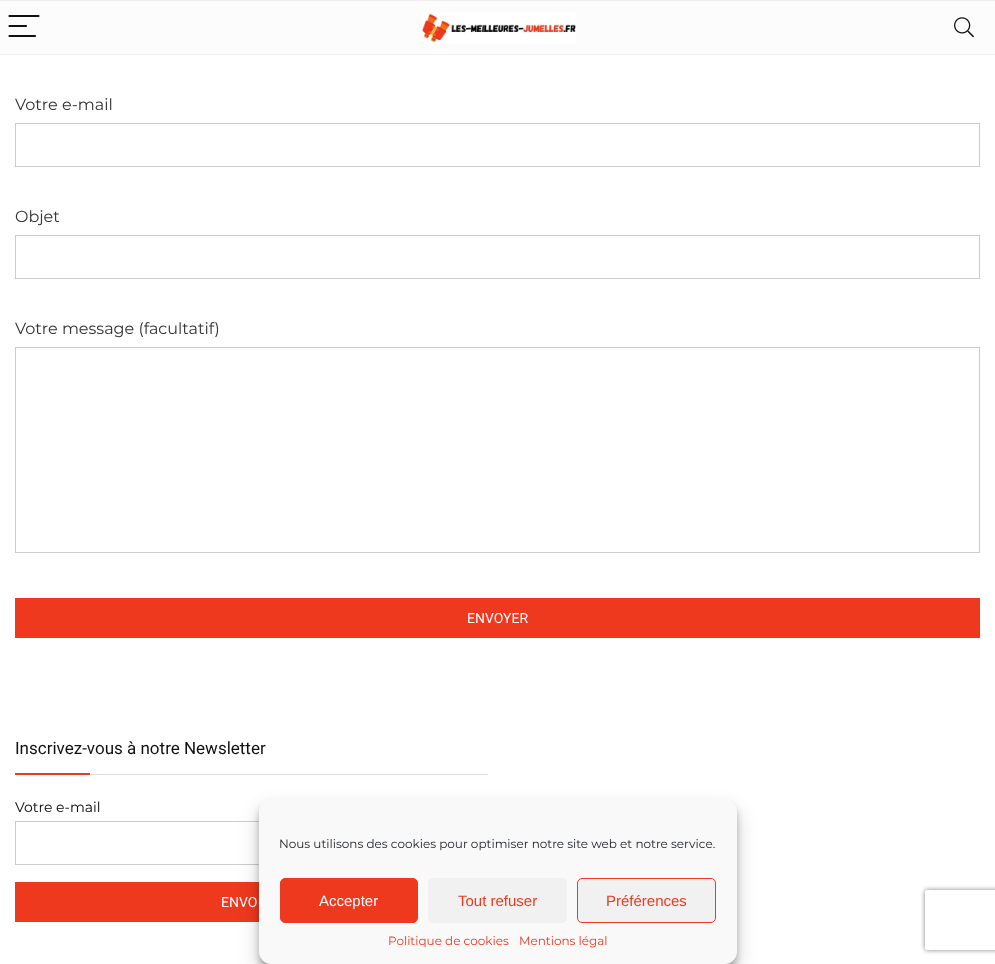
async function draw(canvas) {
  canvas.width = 995;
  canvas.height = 964;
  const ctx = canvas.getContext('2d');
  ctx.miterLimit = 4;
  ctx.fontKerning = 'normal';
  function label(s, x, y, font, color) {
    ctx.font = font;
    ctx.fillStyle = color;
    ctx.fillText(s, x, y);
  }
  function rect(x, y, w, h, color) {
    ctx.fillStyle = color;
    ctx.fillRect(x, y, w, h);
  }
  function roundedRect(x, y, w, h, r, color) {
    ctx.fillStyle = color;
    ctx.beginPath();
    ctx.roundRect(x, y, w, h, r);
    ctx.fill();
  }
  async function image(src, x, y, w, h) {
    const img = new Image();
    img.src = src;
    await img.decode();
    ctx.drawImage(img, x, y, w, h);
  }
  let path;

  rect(0, 0, 995, 964, '#fff');
  rect(0, 1, 995, 53, '#fcfcfc');
  rect(0, 0, 995, 1, '#eee');
  rect(0, 54, 995, 1, '#eee');
  path = new Path2D('M9.5 16H38.5M9.5 26H26M9.5 36H35');
  ctx.strokeStyle = '#111';
  ctx.lineWidth = 2.2;
  ctx.lineCap = 'round';
  ctx.stroke(path);
  await image('assets/img1.png', 422, 12, 154, 32);
  await image('assets/img2.png', 954, 17, 20, 21);
  label('Votre e-mail', 15, 110, '100 16px Montserrat', '#333');
  ctx.strokeStyle = '#ccc';
  ctx.lineWidth = 1;
  ctx.strokeRect(15.5, 123.5, 964, 43);
  label('Objet', 15, 222, '100 16px Montserrat', '#333');
  ctx.strokeRect(15.5, 235.5, 964, 43);
  label('Votre message (facultatif)', 15, 334, '100 16px Montserrat', '#333');
  ctx.strokeRect(15.5, 347.5, 964, 205);
  rect(15, 598, 965, 40, '#ef391f');
  label('ENVOYER', 467, 623, '14px Roboto', '#fff');
  rect(90, 774, 398, 1, '#ddd');
  label('Inscrivez-vous à notre Newsletter', 15, 754, '17px Roboto', '#111');
  rect(15, 773, 75, 2, '#ef391f');
  label('Votre e-mail', 15, 812, '100 14px Montserrat', '#000');
  ctx.strokeRect(15.5, 821.5, 472, 43);
  rect(15, 882, 244, 40, '#ef391f');
  label('ENVO', 221, 907, '14px Roboto', '#fff');
  ctx.fillStyle = '#0000003b';
  ctx.filter = 'blur(3px)';
  ctx.beginPath();
  ctx.roundRect(259, 805, 478, 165, 12);
  ctx.fill();
  ctx.filter = 'none';
  ctx.fillStyle = '#00000030';
  ctx.filter = 'blur(10px)';
  ctx.beginPath();
  ctx.roundRect(259, 809, 478, 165, 12);
  ctx.fill();
  ctx.filter = 'none';
  ctx.fillStyle = '#f9f9f9';
  ctx.beginPath();
  ctx.roundRect(259.5, 799.5, 477, 164, 11.5);
  ctx.fill();
  ctx.strokeStyle = '#f9f9f9';
  ctx.stroke();
  label('Nous utilisons des cookies pour optimiser notre site web et notre service.', 279, 848, '100 12px Montserrat', '#191e23');
  ctx.fillStyle = '#ef391f';
  ctx.beginPath();
  ctx.roundRect(280.5, 878.5, 137, 44, 4.5);
  ctx.fill();
  ctx.strokeStyle = '#ef391f';
  ctx.stroke();
  label('Accepter', 319, 906, '15px Liberation Sans', '#fff');
  roundedRect(428, 878, 139, 45, 5, '#f1f1f1');
  label('Tout refuser', 458, 906, '15px Liberation Sans', '#ef391f');
  ctx.fillStyle = '#f1f1f1';
  ctx.beginPath();
  ctx.roundRect(577.5, 878.5, 138, 44, 4.5);
  ctx.fill();
  ctx.stroke();
  label('Préférences', 606, 906, '15px Liberation Sans', '#ef391f');
  label('Politique de cookies', 388, 945, '100 12px Montserrat', '#ef391f');
  label('Mentions légal', 519, 945, '100 12px Montserrat', '#ef391f');
  ctx.save();
  path = new Path2D('M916 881H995V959H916ZM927 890H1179C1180 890 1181 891 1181 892V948C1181 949 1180 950 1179 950H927C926 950 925 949 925 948V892C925 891 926 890 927 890Z');
  ctx.clip(path, 'evenodd');
  ctx.fillStyle = '#808080';
  ctx.filter = 'blur(2.5px)';
  ctx.beginPath();
  ctx.roundRect(925, 890, 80, 60, 2);
  ctx.fill();
  ctx.filter = 'none';
  ctx.restore();
}

draw(document.querySelector('canvas'));
